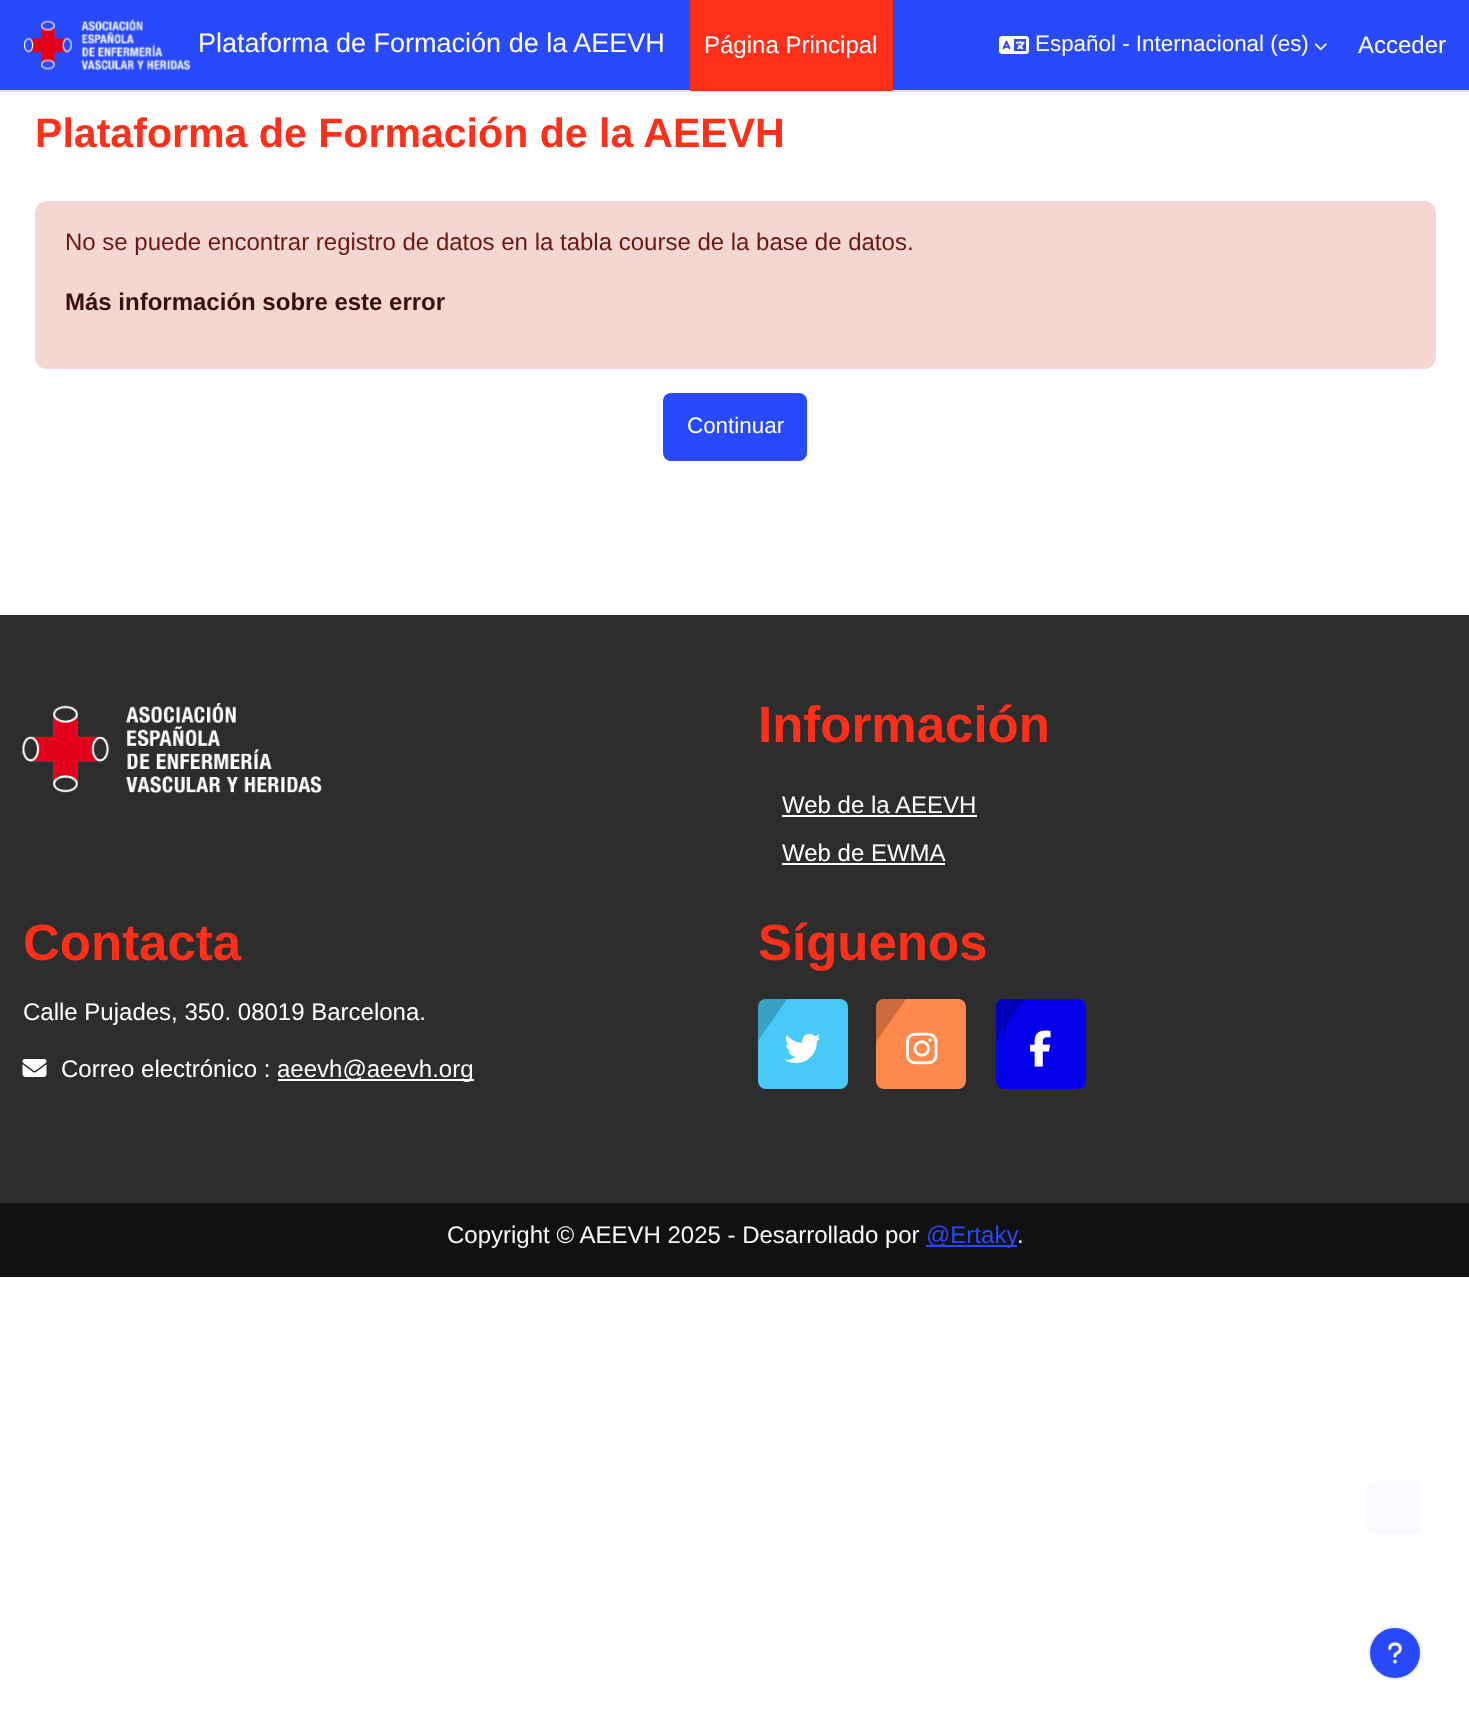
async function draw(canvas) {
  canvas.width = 1469;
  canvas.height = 1727;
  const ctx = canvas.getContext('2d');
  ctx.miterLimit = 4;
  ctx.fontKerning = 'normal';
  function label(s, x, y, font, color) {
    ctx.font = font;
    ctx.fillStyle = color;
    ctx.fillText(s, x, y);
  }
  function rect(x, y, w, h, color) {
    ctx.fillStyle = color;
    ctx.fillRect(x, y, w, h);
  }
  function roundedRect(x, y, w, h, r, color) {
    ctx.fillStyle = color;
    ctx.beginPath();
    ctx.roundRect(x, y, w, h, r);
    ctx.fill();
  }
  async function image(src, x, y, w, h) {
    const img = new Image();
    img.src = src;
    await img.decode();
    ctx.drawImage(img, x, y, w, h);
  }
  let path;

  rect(0, 0, 1469, 1727, '#fff');
  rect(0, 0, 1469, 90, '#284afa');
  rect(0, 90, 1469, 2, '#e8e3e3');
  await image('assets/img1.png', 24, 19, 167, 52);
  label('Plataforma de Formación de la AEEVH', 198, 52, '27px Liberation Sans', '#fff');
  rect(690, 0, 203, 91, '#ff3019');
  label('Página Principal', 704, 53, '24px Liberation Sans', '#fff');
  await image('assets/img2.png', 999, 36, 30, 18);
  label('Español - Internacional (es)', 1035, 51, '22.4px Liberation Sans', '#fff');
  await image('assets/img3.png', 1314, 43, 13, 8);
  label('Acceder', 1358, 53, '24px Liberation Sans', '#fff');
  label('Plataforma de Formación de la AEEVH', 35, 147, 'bold 41.1px Liberation Sans', '#ff3019');
  roundedRect(35, 201, 1401, 168, 12, '#f4d6d2');
  label('No se puede encontrar registro de datos en la tabla course de la base de datos.', 65, 250, '24px Liberation Sans', '#691911');
  label('Más información sobre este error', 65, 310, 'bold 24px Liberation Sans', '#3d0f0a');
  roundedRect(663, 393, 144, 68, 8, '#284afa');
  label('Continuar', 687, 433, '22.4px Liberation Sans', '#fff');
  rect(0, 615, 1469, 588, '#2d2d2d');
  await image('assets/img4.png', 22, 703, 300, 90);
  label('Información', 758, 742, 'bold 51px Liberation Sans', '#ff3019');
  label('Web de la AEEVH', 782, 813, '24px Liberation Sans', '#fff');
  rect(782, 815, 195, 2, '#fff');
  label('Web de EWMA', 782, 861, '24px Liberation Sans', '#fff');
  rect(782, 863, 163, 2, '#fff');
  label('Contacta', 23, 960, 'bold 51px Liberation Sans', '#ff3019');
  label('Calle Pujades, 350. 08019 Barcelona.', 23, 1020, '24px Liberation Sans', '#fff');
  await image('assets/img5.png', 22, 1059, 25, 18);
  label('Correo electrónico :', 61, 1077, '24px Liberation Sans', '#fff');
  rect(278, 1079, 196, 2, '#fff');
  label('aeevh@aeevh.org', 277, 1077, '24px Liberation Sans', '#fff');
  label('Síguenos', 758, 960, 'bold 51px Liberation Sans', '#ff3019');
  roundedRect(758, 999, 90, 90, 8, '#47caf6');
  await image('assets/img6.png', 784, 1033, 37, 31);
  ctx.fillStyle = '#00000033';
  path = new Path2D('M766 999H787L758 1041V1007C758 1003 762 999 766 999Z');
  ctx.fill(path);
  roundedRect(876, 999, 90, 90, 8, '#ff884c');
  await image('assets/img7.png', 906, 1032, 32, 33);
  ctx.fillStyle = '#00000033';
  path = new Path2D('M884 999H906L876 1042V1007C876 1003 880 999 884 999Z');
  ctx.fill(path);
  roundedRect(996, 999, 90, 90, 8, '#0400eb');
  await image('assets/img8.png', 1030, 1030, 21, 37);
  ctx.fillStyle = '#00000033';
  path = new Path2D('M1004 999H1025L996 1041V1007C996 1003 1000 999 1004 999Z');
  ctx.fill(path);
  rect(0, 1203, 1469, 74, '#111');
  label('Copyright © AEEVH 2025 - Desarrollado por', 447, 1243, '24px Liberation Sans', '#f8f9fa');
  rect(926, 1245, 91, 2, '#284afa');
  label('@Ertaky', 926, 1243, '24px Liberation Sans', '#284afa');
  label('.', 1017, 1243, '24px Liberation Sans', '#f8f9fa');
  ctx.fillStyle = '#284afa';
  ctx.beginPath();
  ctx.arc(1395, 1653, 26, 0, 2 * Math.PI);
  ctx.fill();
  ctx.strokeStyle = '#eee';
  ctx.lineWidth = 2;
  ctx.stroke();
  await image('assets/img9.png', 1388, 1642, 14, 22);
  ctx.fillStyle = '#f9faff';
  ctx.beginPath();
  ctx.roundRect(1366, 1480, 55, 55, 7);
  ctx.fill();
  ctx.strokeStyle = '#fff';
  ctx.stroke();
}

draw(document.querySelector('canvas'));
